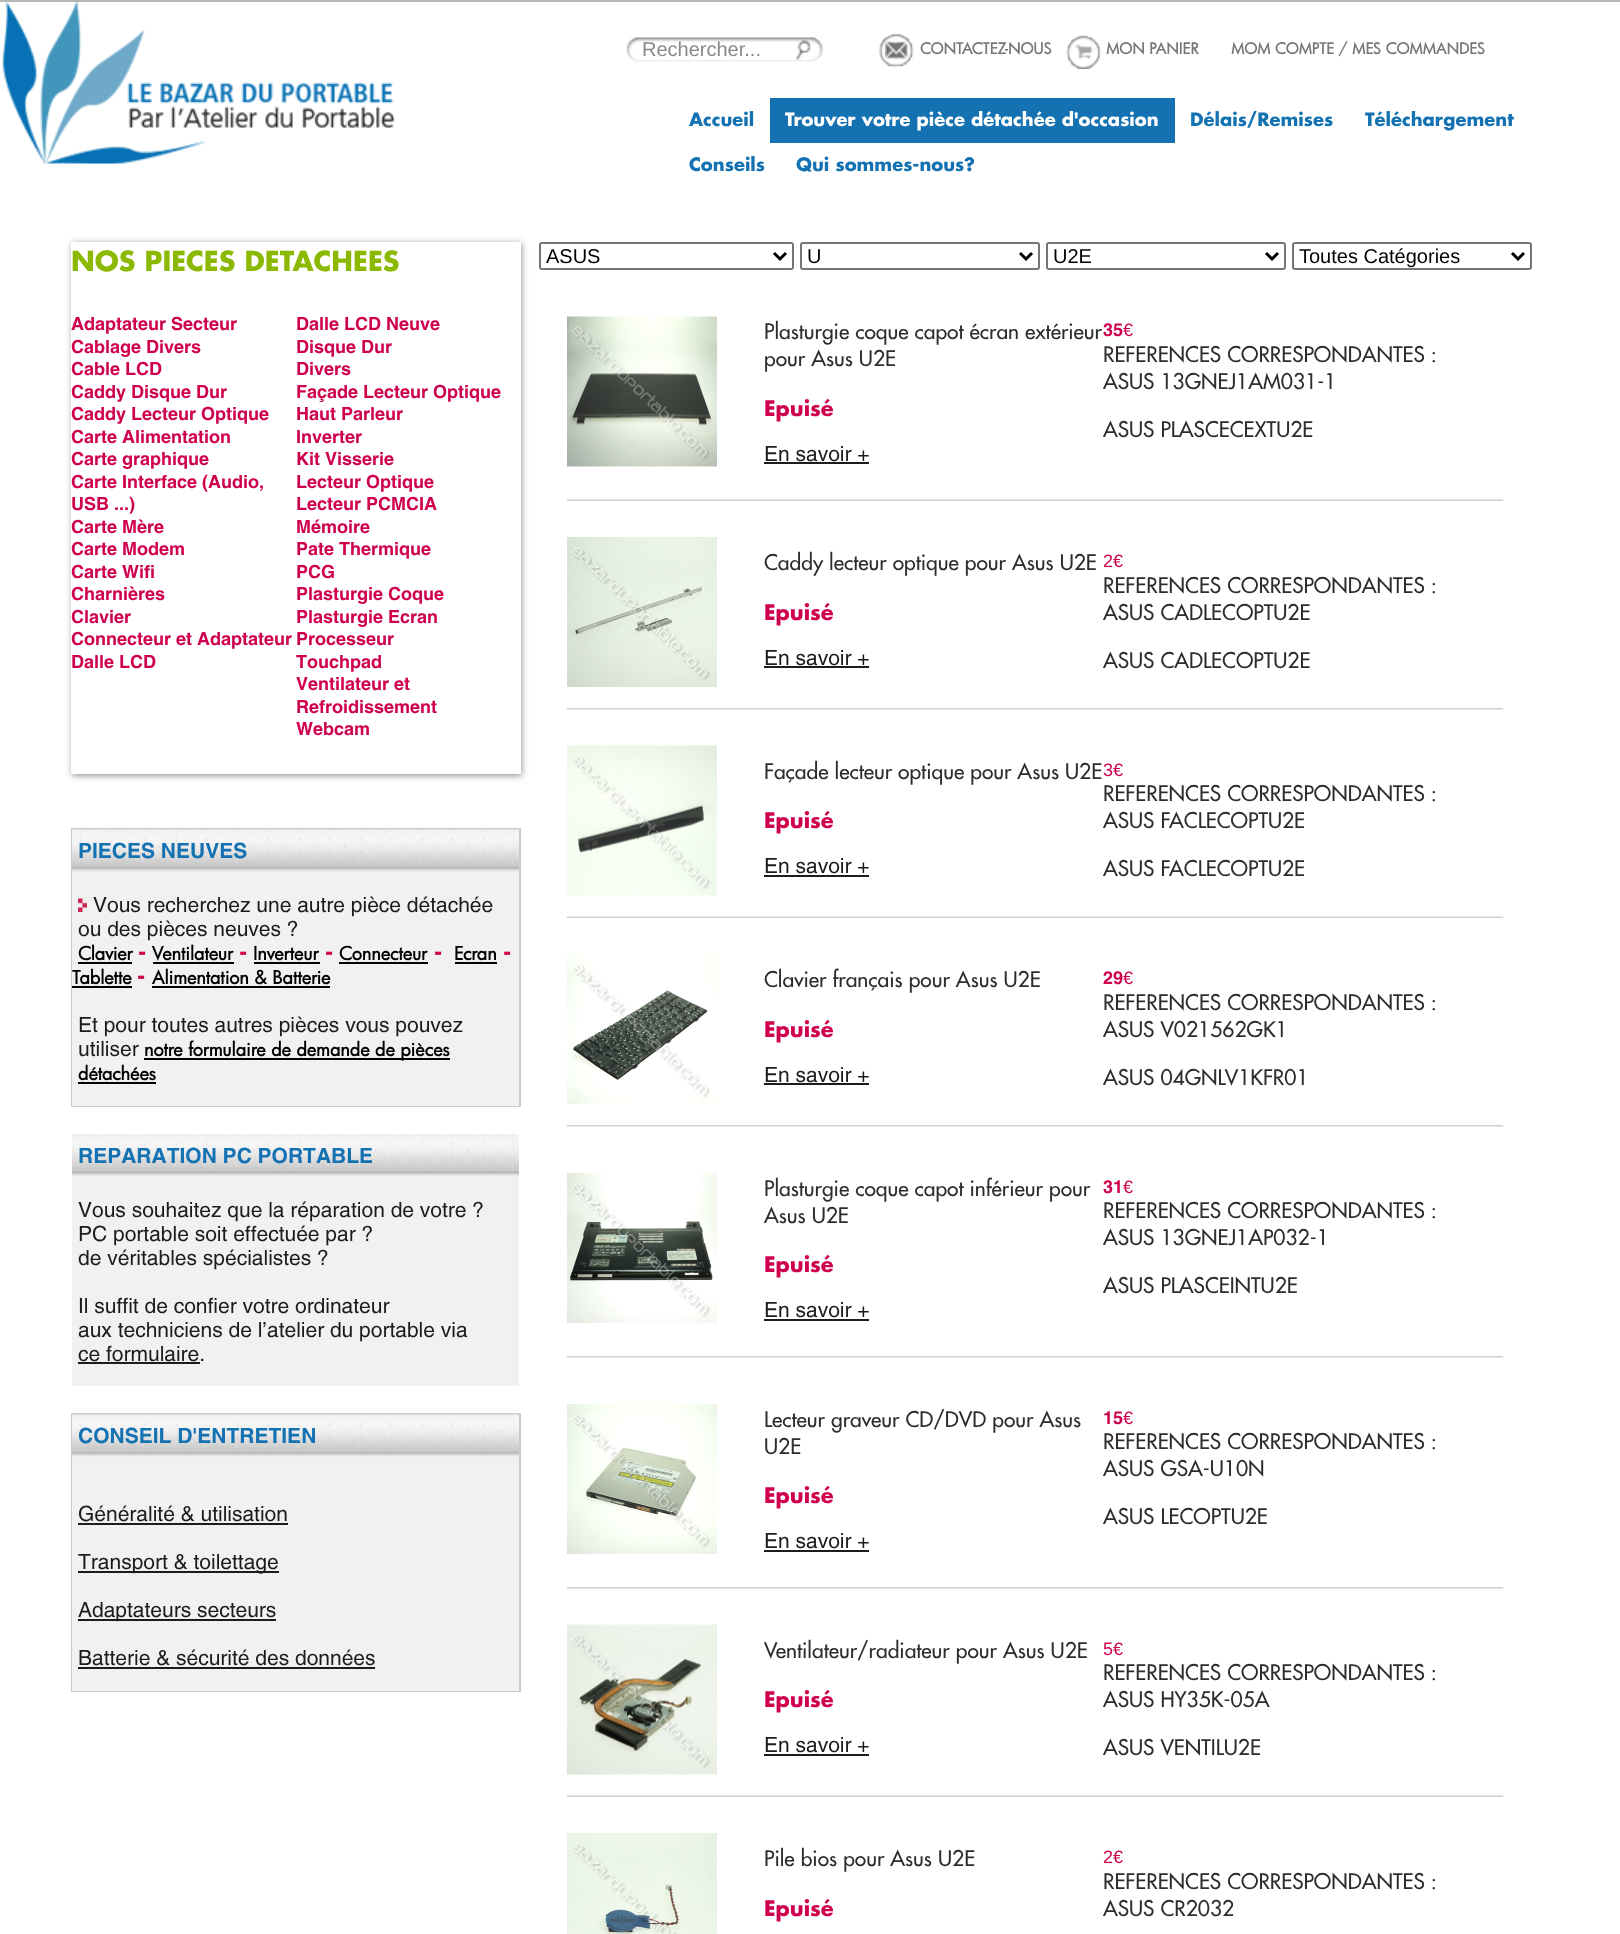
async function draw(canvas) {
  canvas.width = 1620;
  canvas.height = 1934;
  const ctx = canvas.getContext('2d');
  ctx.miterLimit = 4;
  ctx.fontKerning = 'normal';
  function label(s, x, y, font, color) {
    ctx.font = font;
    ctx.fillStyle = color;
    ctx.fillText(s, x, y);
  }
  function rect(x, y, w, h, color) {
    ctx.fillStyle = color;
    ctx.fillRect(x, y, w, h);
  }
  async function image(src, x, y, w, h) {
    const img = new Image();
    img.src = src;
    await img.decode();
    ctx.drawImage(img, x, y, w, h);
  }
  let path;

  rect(0, 0, 1620, 1934, '#fff');
  rect(0, 0, 1620, 2, '#b6b6b6');
  await image('assets/img1.png', 2, 1, 393, 163);
  await image('assets/img2.png', 627, 37, 165, 25);
  label('Rechercher...', 642, 56, '20px Liberation Sans', '#888');
  await image('assets/img3.png', 792, 37, 32, 25);
  await image('assets/img4.png', 878, 33, 36, 35);
  label('CONTACTEZ-NOUS', 920, 54, 'bold 15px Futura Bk', '#777');
  await image('assets/img5.png', 1066, 35, 35, 34);
  label('MON PANIER', 1106, 54, 'bold 15px Futura Bk', '#777');
  label('MOM COMPTE / MES COMMANDES', 1231, 54, 'bold 15px Futura Bk', '#777');
  label('Accueil', 689, 126, 'bold 18px Futura', '#1472b2');
  rect(770, 98, 405, 45, '#1472b2');
  label('Trouver votre pièce détachée d\'occasion', 785, 126, 'bold 18px Futura', '#fff');
  label('Délais/Remises', 1190, 126, 'bold 18px Futura', '#1472b2');
  label('Téléchargement', 1365, 126, 'bold 18px Futura', '#1472b2');
  label('Conseils', 689, 171, 'bold 18px Futura', '#1472b2');
  label('Qui sommes-nous?', 796, 171, 'bold 18px Futura', '#1472b2');
  ctx.save();
  path = new Path2D('M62 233H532V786H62ZM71 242H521V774H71Z');
  ctx.clip(path, 'evenodd');
  ctx.fillStyle = '#999';
  ctx.filter = 'blur(3px)';
  ctx.beginPath();
  ctx.rect(72, 243, 450, 533);
  ctx.fill();
  ctx.filter = 'none';
  ctx.restore();
  label('NOS PIECES DETACHEES', 71, 271, 'bold 27px Futura', '#8bb800');
  label('Adaptateur Secteur', 71, 330, 'bold 18px Helvetica', '#cf004e');
  label('Cablage Divers', 71, 353, 'bold 18px Helvetica', '#cf004e');
  label('Cable LCD', 71, 375, 'bold 18px Helvetica', '#cf004e');
  label('Caddy Disque Dur', 71, 398, 'bold 18px Helvetica', '#cf004e');
  label('Caddy Lecteur Optique', 71, 420, 'bold 18px Helvetica', '#cf004e');
  label('Carte Alimentation', 71, 443, 'bold 18px Helvetica', '#cf004e');
  label('Carte graphique', 71, 465, 'bold 18px Helvetica', '#cf004e');
  label('Carte Interface (Audio,', 71, 488, 'bold 18px Helvetica', '#cf004e');
  label('USB ...)', 71, 510, 'bold 18px Helvetica', '#cf004e');
  label('Carte Mère', 71, 533, 'bold 18px Helvetica', '#cf004e');
  label('Carte Modem', 71, 555, 'bold 18px Helvetica', '#cf004e');
  label('Carte Wifi', 71, 578, 'bold 18px Helvetica', '#cf004e');
  label('Charnières', 71, 600, 'bold 18px Helvetica', '#cf004e');
  label('Clavier', 71, 623, 'bold 18px Helvetica', '#cf004e');
  label('Connecteur et Adaptateur', 71, 645, 'bold 18px Helvetica', '#cf004e');
  label('Dalle LCD', 71, 668, 'bold 18px Helvetica', '#cf004e');
  label('Dalle LCD Neuve', 296, 330, 'bold 18px Helvetica', '#cf004e');
  label('Disque Dur', 296, 353, 'bold 18px Helvetica', '#cf004e');
  label('Divers', 296, 375, 'bold 18px Helvetica', '#cf004e');
  label('Façade Lecteur Optique', 296, 398, 'bold 18px Helvetica', '#cf004e');
  label('Haut Parleur', 296, 420, 'bold 18px Helvetica', '#cf004e');
  label('Inverter', 296, 443, 'bold 18px Helvetica', '#cf004e');
  label('Kit Visserie', 296, 465, 'bold 18px Helvetica', '#cf004e');
  label('Lecteur Optique', 296, 488, 'bold 18px Helvetica', '#cf004e');
  label('Lecteur PCMCIA', 296, 510, 'bold 18px Helvetica', '#cf004e');
  label('Mémoire', 296, 533, 'bold 18px Helvetica', '#cf004e');
  label('Pate Thermique', 296, 555, 'bold 18px Helvetica', '#cf004e');
  label('PCG', 296, 578, 'bold 18px Helvetica', '#cf004e');
  label('Plasturgie Coque', 296, 600, 'bold 18px Helvetica', '#cf004e');
  label('Plasturgie Ecran', 296, 623, 'bold 18px Helvetica', '#cf004e');
  label('Processeur', 296, 645, 'bold 18px Helvetica', '#cf004e');
  label('Touchpad', 296, 668, 'bold 18px Helvetica', '#cf004e');
  label('Ventilateur et', 296, 690, 'bold 18px Helvetica', '#cf004e');
  label('Refroidissement', 296, 713, 'bold 18px Helvetica', '#cf004e');
  label('Webcam', 296, 735, 'bold 18px Helvetica', '#cf004e');
  rect(71, 828, 450, 279, '#cbcbcb');
  rect(72, 871, 447, 235, '#f1f1f1');
  await image('assets/img6.png', 72, 829, 447, 43);
  label('PIECES NEUVES', 78, 858, 'bold 21px Helvetica', '#1472b2');
  await image('assets/img7.png', 78, 898, 9, 14);
  label('Vous recherchez une autre pièce détachée', 93, 912, '500 21px Helvetica', '#1c1c1d');
  label('ou des pièces neuves ?', 78, 936, '500 21px Helvetica', '#1c1c1d');
  label('Clavier', 78, 960, 'bold 18px Futura Bk', '#000');
  rect(78, 962, 54, 2, '#000');
  label('-', 138, 960, 'bold 21px Futura', '#cf004e');
  label('Ventilateur', 152, 960, 'bold 18px Futura Bk', '#000');
  rect(153, 962, 81, 2, '#000');
  label('-', 239, 960, 'bold 21px Futura', '#cf004e');
  label('Inverteur', 253, 960, 'bold 18px Futura Bk', '#000');
  rect(254, 962, 66, 2, '#000');
  label('-', 325, 960, 'bold 21px Futura', '#cf004e');
  label('Connecteur', 339, 960, 'bold 18px Futura Bk', '#000');
  rect(339, 962, 89, 2, '#000');
  label('-', 434, 960, 'bold 21px Futura', '#cf004e');
  label('Ecran', 454, 960, 'bold 18px Futura Bk', '#000');
  rect(455, 962, 42, 2, '#000');
  label('-', 503, 960, 'bold 21px Futura', '#cf004e');
  label('Tablette', 72, 984, 'bold 18px Futura Bk', '#000');
  rect(72, 986, 60, 2, '#000');
  label('-', 137, 984, 'bold 21px Futura', '#cf004e');
  label('Alimentation & Batterie', 152, 984, 'bold 18px Futura Bk', '#000');
  rect(152, 986, 178, 2, '#000');
  label('Et pour toutes autres pièces vous pouvez', 78, 1032, '500 21px Helvetica', '#1c1c1d');
  label('utiliser', 78, 1056, '500 21px Helvetica', '#1c1c1d');
  rect(144, 1058, 306, 2, '#000');
  label('notre formulaire de demande de pièces', 144, 1056, 'bold 18px Futura Bk', '#000');
  label('détachées', 78, 1080, 'bold 18px Futura Bk', '#000');
  rect(78, 1082, 78, 2, '#000');
  rect(72, 1176, 447, 210, '#f1f1f1');
  await image('assets/img8.png', 72, 1134, 447, 42);
  label('REPARATION PC PORTABLE', 78, 1163, 'bold 21px Helvetica', '#1472b2');
  label('Vous souhaitez que la réparation de votre ?', 78, 1217, '500 21px Helvetica', '#1c1c1d');
  label('PC portable soit effectuée par ?', 78, 1241, '500 21px Helvetica', '#1c1c1d');
  label('de véritables spécialistes ?', 78, 1265, '500 21px Helvetica', '#1c1c1d');
  label('Il suffit de confier votre ordinateur', 78, 1313, '500 21px Helvetica', '#1c1c1d');
  label('aux techniciens de l’atelier du portable via', 78, 1337, '500 21px Helvetica', '#1c1c1d');
  label('ce formulaire.', 78, 1361, '500 21px Helvetica', '#1c1c1d');
  rect(78, 1362, 122, 2, '#1c1c1d');
  rect(71, 1413, 450, 279, '#cbcbcb');
  rect(72, 1456, 447, 235, '#f1f1f1');
  await image('assets/img6.png', 72, 1414, 447, 43);
  label('CONSEIL D\'ENTRETIEN', 78, 1443, 'bold 21px Helvetica', '#1472b2');
  label('Généralité & utilisation', 78, 1521, '500 21px Helvetica', '#1c1c1d');
  rect(78, 1523, 210, 2, '#1c1c1d');
  rect(78, 1571, 201, 2, '#1c1c1d');
  label('Transport & toilettage', 78, 1569, '500 21px Helvetica', '#1c1c1d');
  rect(78, 1619, 198, 2, '#1c1c1d');
  label('Adaptateurs secteurs', 78, 1617, '500 21px Helvetica', '#1c1c1d');
  label('Batterie & sécurité des données', 78, 1665, '500 21px Helvetica', '#1c1c1d');
  rect(78, 1667, 297, 2, '#1c1c1d');
  ctx.beginPath();
  ctx.roundRect(540, 243, 253, 26, 2);
  ctx.strokeStyle = '#767676';
  ctx.lineWidth = 2;
  ctx.stroke();
  path = new Path2D('M774 253L780 259L786 253');
  ctx.strokeStyle = '#000';
  ctx.lineWidth = 3;
  ctx.stroke(path);
  label('ASUS', 546, 263, '20px Liberation Sans', '#000');
  ctx.beginPath();
  ctx.roundRect(801, 243, 238, 26, 2);
  ctx.strokeStyle = '#767676';
  ctx.lineWidth = 2;
  ctx.stroke();
  path = new Path2D('M1020 253L1026 259L1032 253');
  ctx.strokeStyle = '#000';
  ctx.lineWidth = 3;
  ctx.stroke(path);
  label('U', 807, 263, '20px Liberation Sans', '#000');
  ctx.beginPath();
  ctx.roundRect(1047, 243, 238, 26, 2);
  ctx.strokeStyle = '#767676';
  ctx.lineWidth = 2;
  ctx.stroke();
  path = new Path2D('M1266 253L1272 259L1278 253');
  ctx.strokeStyle = '#000';
  ctx.lineWidth = 3;
  ctx.stroke(path);
  label('U2E', 1053, 263, '20px Liberation Sans', '#000');
  ctx.beginPath();
  ctx.roundRect(1293, 243, 238, 26, 2);
  ctx.strokeStyle = '#767676';
  ctx.lineWidth = 2;
  ctx.stroke();
  path = new Path2D('M1512 253L1518 259L1524 253');
  ctx.strokeStyle = '#000';
  ctx.lineWidth = 3;
  ctx.stroke(path);
  label('Toutes Catégories', 1299, 263, '20px Liberation Sans', '#000');
  await image('assets/img9.png', 567, 316, 150, 151);
  label('Plasturgie coque capot écran extérieur', 764, 339, '21px Futura', '#2d2d2d');
  label('pour Asus U2E', 764, 366, '21px Futura', '#2d2d2d');
  label('Epuisé', 764, 416, 'bold 21px Futura', '#cf004e');
  label('En savoir +', 764, 461, '500 21px Helvetica', '#1c1c1d');
  rect(764, 462, 105, 2, '#1c1c1d');
  label('35', 1103, 336, 'bold 18px Helvetica', '#cf004e');
  label('€', 1123, 336, '18px Liberation Sans', '#cf004e');
  label('REFERENCES CORRESPONDANTES :', 1103, 362, '21px Futura', '#2d2d2d');
  label('ASUS 13GNEJ1AM031-1', 1103, 389, '21px Futura', '#2d2d2d');
  label('ASUS PLASCECEXTU2E', 1103, 437, '21px Futura', '#2d2d2d');
  await image('assets/img10.png', 567, 499, 937, 2);
  await image('assets/img11.png', 567, 537, 150, 150);
  label('Caddy lecteur optique pour Asus U2E', 764, 570, '21px Futura', '#2d2d2d');
  label('Epuisé', 764, 620, 'bold 21px Futura', '#cf004e');
  label('En savoir +', 764, 665, '500 21px Helvetica', '#1c1c1d');
  rect(764, 666, 105, 2, '#1c1c1d');
  label('2€', 1103, 567, '18px Liberation Sans', '#cf004e');
  label('REFERENCES CORRESPONDANTES :', 1103, 593, '21px Futura', '#2d2d2d');
  label('ASUS CADLECOPTU2E', 1103, 620, '21px Futura', '#2d2d2d');
  label('ASUS CADLECOPTU2E', 1103, 668, '21px Futura', '#2d2d2d');
  await image('assets/img12.png', 567, 708, 937, 2);
  await image('assets/img13.png', 567, 745, 150, 151);
  label('Façade lecteur optique pour Asus U2E', 764, 779, '21px Futura', '#2d2d2d');
  label('Epuisé', 764, 828, 'bold 21px Futura', '#cf004e');
  label('En savoir +', 764, 873, '500 21px Helvetica', '#1c1c1d');
  rect(764, 875, 105, 2, '#1c1c1d');
  label('3€', 1103, 776, '18px Liberation Sans', '#cf004e');
  label('REFERENCES CORRESPONDANTES :', 1103, 801, '21px Futura', '#2d2d2d');
  label('ASUS FACLECOPTU2E', 1103, 828, '21px Futura', '#2d2d2d');
  label('ASUS FACLECOPTU2E', 1103, 876, '21px Futura', '#2d2d2d');
  await image('assets/img10.png', 567, 916, 937, 2);
  await image('assets/img14.png', 567, 954, 150, 150);
  label('Clavier français pour Asus U2E', 764, 987, '21px Futura', '#2d2d2d');
  label('Epuisé', 764, 1037, 'bold 21px Futura', '#cf004e');
  label('En savoir +', 764, 1082, '500 21px Helvetica', '#1c1c1d');
  rect(764, 1083, 105, 2, '#1c1c1d');
  label('29', 1103, 984, 'bold 18px Helvetica', '#cf004e');
  label('€', 1123, 984, '18px Liberation Sans', '#cf004e');
  label('REFERENCES CORRESPONDANTES :', 1103, 1010, '21px Futura', '#2d2d2d');
  label('ASUS V021562GK1', 1103, 1037, '21px Futura', '#2d2d2d');
  label('ASUS 04GNLV1KFR01', 1103, 1085, '21px Futura', '#2d2d2d');
  await image('assets/img12.png', 567, 1125, 937, 2);
  await image('assets/img15.png', 567, 1173, 150, 150);
  label('Plasturgie coque capot inférieur pour', 764, 1196, '21px Futura', '#2d2d2d');
  label('Asus U2E', 764, 1223, '21px Futura', '#2d2d2d');
  label('Epuisé', 764, 1272, 'bold 21px Futura', '#cf004e');
  label('En savoir +', 764, 1317, '500 21px Helvetica', '#1c1c1d');
  rect(764, 1319, 105, 2, '#1c1c1d');
  label('31', 1103, 1193, 'bold 18px Helvetica', '#cf004e');
  label('€', 1123, 1193, '18px Liberation Sans', '#cf004e');
  label('REFERENCES CORRESPONDANTES :', 1103, 1218, '21px Futura', '#2d2d2d');
  label('ASUS 13GNEJ1AP032-1', 1103, 1245, '21px Futura', '#2d2d2d');
  label('ASUS PLASCEINTU2E', 1103, 1293, '21px Futura', '#2d2d2d');
  await image('assets/img12.png', 567, 1356, 937, 2);
  await image('assets/img16.png', 567, 1404, 150, 150);
  label('Lecteur graveur CD/DVD pour Asus', 764, 1427, '21px Futura', '#2d2d2d');
  label('U2E', 764, 1454, '21px Futura', '#2d2d2d');
  label('Epuisé', 764, 1503, 'bold 21px Futura', '#cf004e');
  label('En savoir +', 764, 1548, '500 21px Helvetica', '#1c1c1d');
  rect(764, 1550, 105, 2, '#1c1c1d');
  label('15', 1103, 1424, 'bold 18px Helvetica', '#cf004e');
  label('€', 1123, 1424, '18px Liberation Sans', '#cf004e');
  label('REFERENCES CORRESPONDANTES :', 1103, 1449, '21px Futura', '#2d2d2d');
  label('ASUS GSA-U10N', 1103, 1476, '21px Futura', '#2d2d2d');
  label('ASUS LECOPTU2E', 1103, 1524, '21px Futura', '#2d2d2d');
  await image('assets/img12.png', 567, 1587, 937, 2);
  await image('assets/img17.png', 567, 1624, 150, 151);
  label('Ventilateur/radiateur pour Asus U2E', 764, 1658, '21px Futura', '#2d2d2d');
  label('Epuisé', 764, 1707, 'bold 21px Futura', '#cf004e');
  label('En savoir +', 764, 1752, '500 21px Helvetica', '#1c1c1d');
  rect(764, 1754, 105, 2, '#1c1c1d');
  label('5€', 1103, 1655, '18px Liberation Sans', '#cf004e');
  label('REFERENCES CORRESPONDANTES :', 1103, 1680, '21px Futura', '#2d2d2d');
  label('ASUS HY35K-05A', 1103, 1707, '21px Futura', '#2d2d2d');
  label('ASUS VENTILU2E', 1103, 1755, '21px Futura', '#2d2d2d');
  await image('assets/img10.png', 567, 1795, 937, 2);
  await image('assets/img18.png', 567, 1833, 150, 101);
  label('Pile bios pour Asus U2E', 764, 1866, '21px Futura', '#2d2d2d');
  label('Epuisé', 764, 1916, 'bold 21px Futura', '#cf004e');
  label('2€', 1103, 1863, '18px Liberation Sans', '#cf004e');
  label('REFERENCES CORRESPONDANTES :', 1103, 1889, '21px Futura', '#2d2d2d');
  label('ASUS CR2032', 1103, 1916, '21px Futura', '#2d2d2d');
}

draw(document.querySelector('canvas'));
